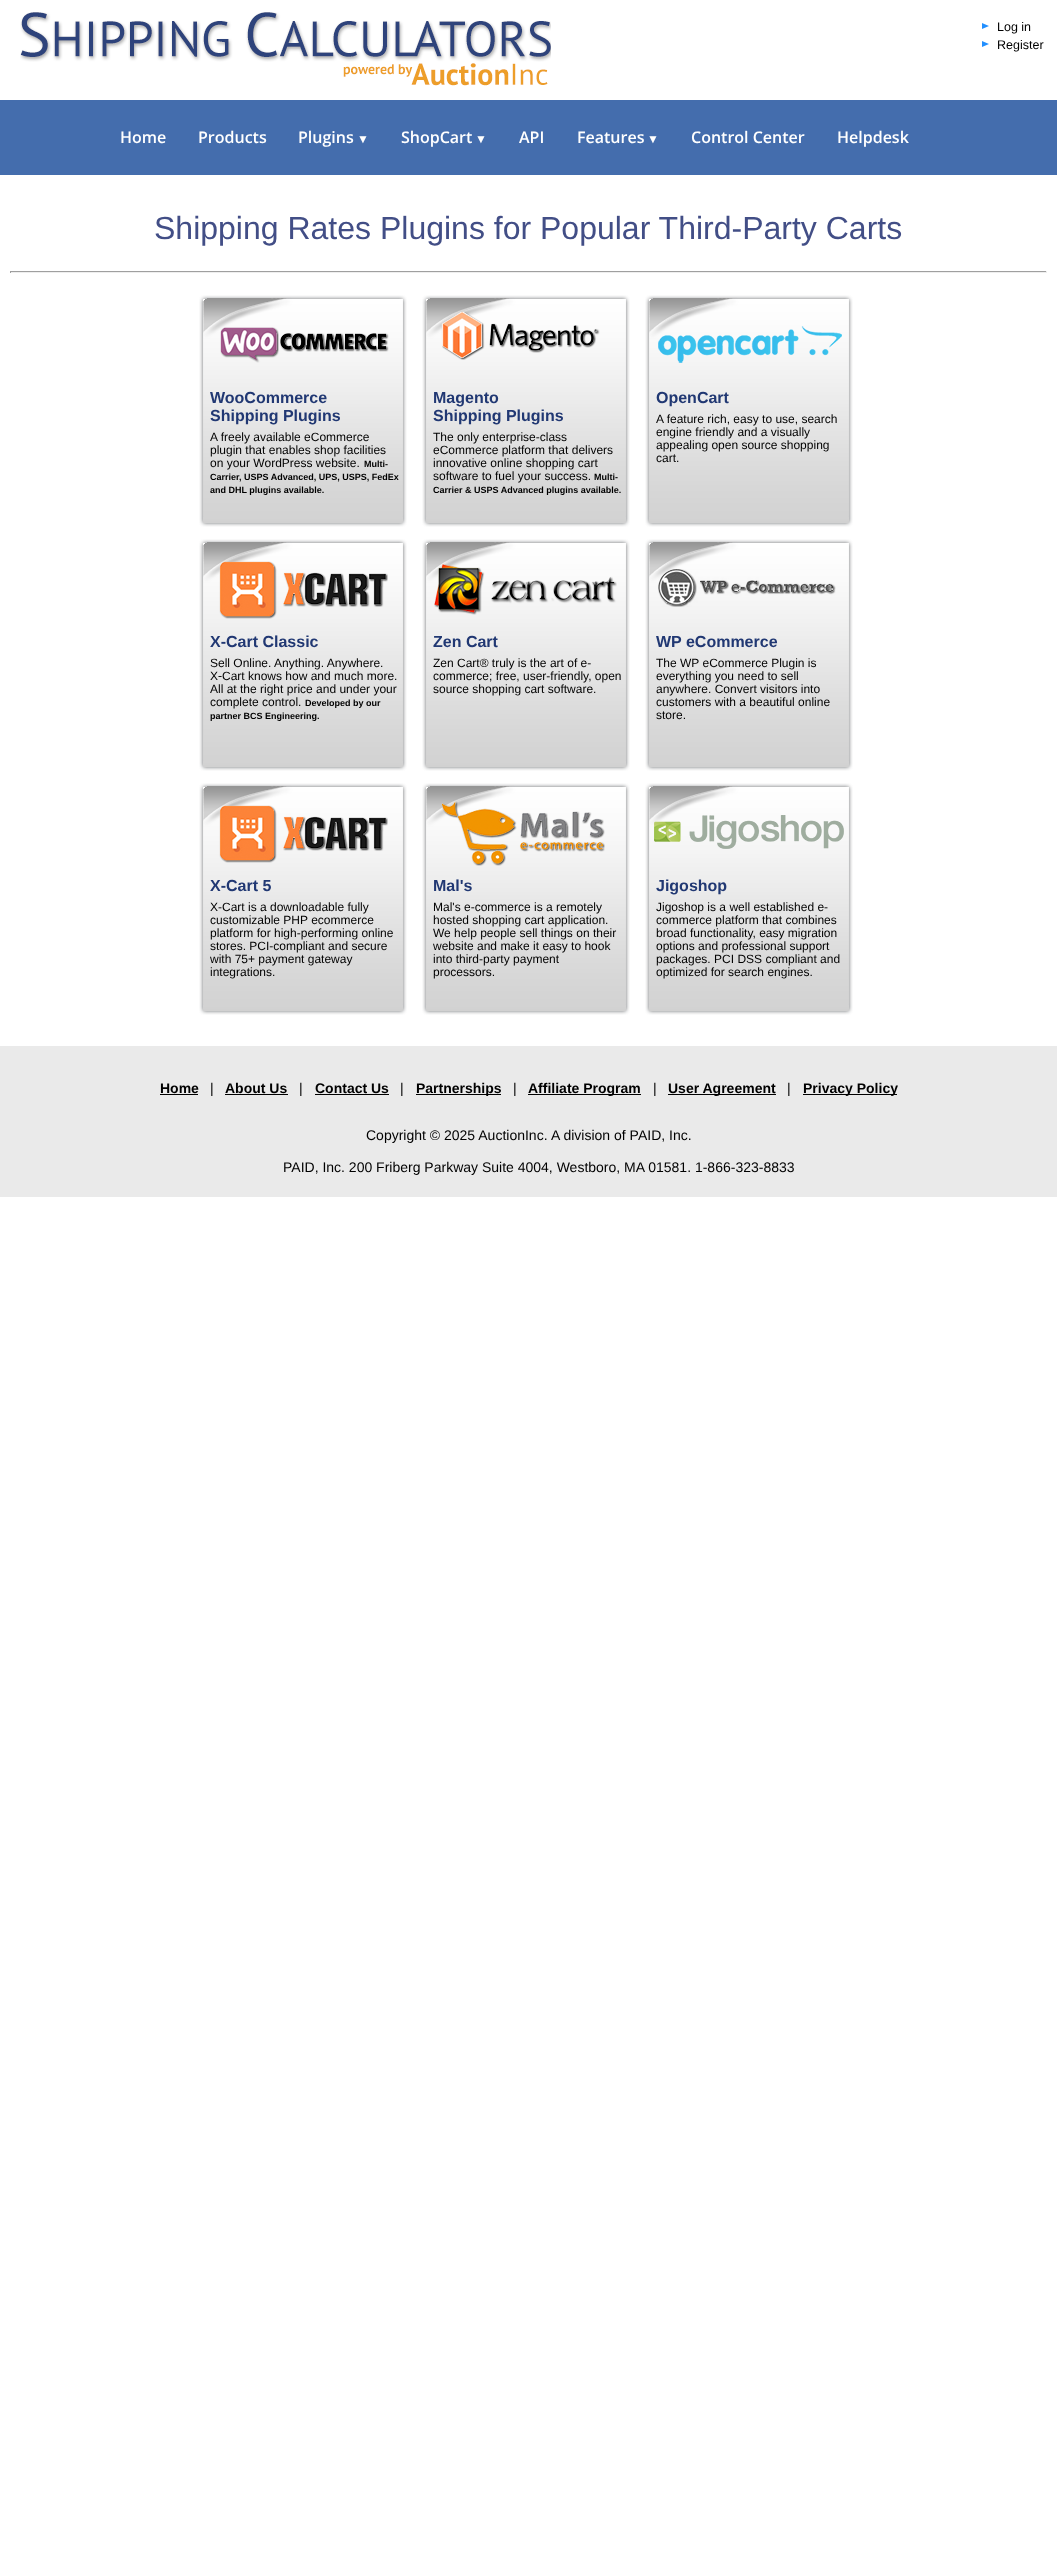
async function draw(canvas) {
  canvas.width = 1057;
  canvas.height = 2554;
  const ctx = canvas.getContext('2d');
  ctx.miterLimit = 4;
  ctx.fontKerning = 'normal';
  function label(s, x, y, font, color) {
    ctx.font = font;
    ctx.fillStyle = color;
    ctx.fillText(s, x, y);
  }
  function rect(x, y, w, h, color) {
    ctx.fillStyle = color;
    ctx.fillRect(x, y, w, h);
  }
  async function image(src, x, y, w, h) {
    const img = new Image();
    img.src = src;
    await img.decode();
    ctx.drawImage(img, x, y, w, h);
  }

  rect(0, 0, 1057, 2554, '#fff');
  await image('assets/img1.png', 20, 12, 531, 74);
  await image('assets/img2.png', 982, 23, 7, 6);
  label('Log in', 997, 31, '12.5px Liberation Sans', '#000');
  await image('assets/img2.png', 982, 41, 7, 6);
  label('Register', 997, 49, '12.5px Liberation Sans', '#000');
  rect(0, 100, 1057, 75, '#446dad');
  label('Home', 120, 143, '600 16px Open Sans', '#fff');
  label('Products', 198, 143, '600 16px Open Sans', '#fff');
  label('Plugins', 298, 143, '600 16px Open Sans', '#fff');
  label('▼', 357, 143, 'bold 12px Liberation Sans', '#fff');
  label('ShopCart', 401, 143, '600 16px Open Sans', '#fff');
  label('▼', 475, 143, 'bold 12px Liberation Sans', '#fff');
  label('API', 519, 143, '600 16px Open Sans', '#fff');
  label('Features', 577, 143, '600 16px Open Sans', '#fff');
  label('▼', 647, 143, 'bold 12px Liberation Sans', '#fff');
  label('Control Center', 691, 143, '600 16px Open Sans', '#fff');
  label('Helpdesk', 837, 143, '600 16px Open Sans', '#fff');
  label('Shipping Rates Plugins for Popular Third-Party Carts', 154, 239, '32px Liberation Sans', '#424e86');
  rect(10, 271, 1037, 1, '#9f9f9f');
  rect(1046, 271, 1, 2, '#eee');
  rect(10, 272, 1037, 1, '#eee');
  rect(10, 271, 1, 2, '#9f9f9f');
  await image('assets/img3.png', 199, 295, 208, 232);
  await image('assets/img4.png', 220, 327, 169, 36);
  label('WooCommerce', 210, 403, 'bold 16px Liberation Sans', '#213873');
  label('Shipping Plugins', 210, 421, 'bold 16px Liberation Sans', '#213873');
  label('A freely available eCommerce', 210, 441, '12px Liberation Sans', '#000');
  label('plugin that enables shop facilities', 210, 454, '12px Liberation Sans', '#000');
  label('on your WordPress website.', 210, 467, '12px Liberation Sans', '#000');
  label('Multi-', 364, 467, 'bold 9px Liberation Sans', '#000');
  label('Carrier, USPS Advanced, UPS, USPS, FedEx', 210, 480, 'bold 9px Liberation Sans', '#000');
  label('and DHL plugins available.', 210, 493, 'bold 9px Liberation Sans', '#000');
  await image('assets/img3.png', 422, 295, 208, 232);
  await image('assets/img5.png', 441, 312, 159, 48);
  label('Magento', 433, 403, 'bold 16px Liberation Sans', '#213873');
  label('Shipping Plugins', 433, 421, 'bold 16px Liberation Sans', '#213873');
  label('The only enterprise-class', 433, 441, '12px Liberation Sans', '#000');
  label('eCommerce platform that delivers', 433, 454, '12px Liberation Sans', '#000');
  label('innovative online shopping cart', 433, 467, '12px Liberation Sans', '#000');
  label('software to fuel your success.', 433, 480, '12px Liberation Sans', '#000');
  label('Multi-', 594, 480, 'bold 9px Liberation Sans', '#000');
  label('Carrier & USPS Advanced plugins available.', 433, 493, 'bold 9px Liberation Sans', '#000');
  await image('assets/img3.png', 645, 295, 208, 232);
  await image('assets/img6.png', 658, 326, 184, 37);
  label('OpenCart', 656, 403, 'bold 16px Liberation Sans', '#213873');
  label('A feature rich, easy to use, search', 656, 423, '12px Liberation Sans', '#000');
  label('engine friendly and a visually', 656, 436, '12px Liberation Sans', '#000');
  label('appealing open source shopping', 656, 449, '12px Liberation Sans', '#000');
  label('cart.', 656, 462, '12px Liberation Sans', '#000');
  await image('assets/img3.png', 199, 539, 208, 232);
  await image('assets/img7.png', 219, 561, 169, 58);
  label('X-Cart Classic', 210, 647, 'bold 16px Liberation Sans', '#213873');
  label('Sell Online. Anything. Anywhere.', 210, 667, '12px Liberation Sans', '#000');
  label('X‑Cart knows how and much more.', 210, 680, '12px Liberation Sans', '#000');
  label('All at the right price and under your', 210, 693, '12px Liberation Sans', '#000');
  label('complete control.', 210, 706, '12px Liberation Sans', '#000');
  label('Developed by our', 305, 706, 'bold 9px Liberation Sans', '#000');
  label('partner BCS Engineering.', 210, 719, 'bold 9px Liberation Sans', '#000');
  await image('assets/img3.png', 422, 539, 208, 232);
  await image('assets/img8.png', 434, 564, 183, 51);
  label('Zen Cart', 433, 647, 'bold 16px Liberation Sans', '#213873');
  label('Zen Cart® truly is the art of e-', 433, 667, '12px Liberation Sans', '#000');
  label('commerce; free, user-friendly, open', 433, 680, '12px Liberation Sans', '#000');
  label('source shopping cart software.', 433, 693, '12px Liberation Sans', '#000');
  await image('assets/img3.png', 645, 539, 208, 232);
  await image('assets/img9.png', 658, 569, 178, 38);
  label('WP eCommerce', 656, 647, 'bold 16px Liberation Sans', '#213873');
  label('The WP eCommerce Plugin is', 656, 667, '12px Liberation Sans', '#000');
  label('everything you need to sell', 656, 680, '12px Liberation Sans', '#000');
  label('anywhere. Convert visitors into', 656, 693, '12px Liberation Sans', '#000');
  label('customers with a beautiful online', 656, 706, '12px Liberation Sans', '#000');
  label('store.', 656, 719, '12px Liberation Sans', '#000');
  await image('assets/img3.png', 199, 783, 208, 232);
  await image('assets/img7.png', 219, 805, 169, 58);
  label('X-Cart 5', 210, 891, 'bold 16px Liberation Sans', '#213873');
  label('X-Cart is a downloadable fully', 210, 911, '12px Liberation Sans', '#000');
  label('customizable PHP ecommerce', 210, 924, '12px Liberation Sans', '#000');
  label('platform for high-performing online', 210, 937, '12px Liberation Sans', '#000');
  label('stores. PCI-compliant and secure', 210, 950, '12px Liberation Sans', '#000');
  label('with 75+ payment gateway', 210, 963, '12px Liberation Sans', '#000');
  label('integrations.', 210, 976, '12px Liberation Sans', '#000');
  await image('assets/img3.png', 422, 783, 208, 232);
  await image('assets/img10.png', 442, 801, 163, 65);
  label('Mal\'s', 433, 891, 'bold 16px Liberation Sans', '#213873');
  label('Mal\'s e-commerce is a remotely', 433, 911, '12px Liberation Sans', '#000');
  label('hosted shopping cart application.', 433, 924, '12px Liberation Sans', '#000');
  label('We help people sell things on their', 433, 937, '12px Liberation Sans', '#000');
  label('website and make it easy to hook', 433, 950, '12px Liberation Sans', '#000');
  label('into third-party payment', 433, 963, '12px Liberation Sans', '#000');
  label('processors.', 433, 976, '12px Liberation Sans', '#000');
  await image('assets/img3.png', 645, 783, 208, 232);
  await image('assets/img11.png', 654, 815, 190, 34);
  label('Jigoshop', 656, 891, 'bold 16px Liberation Sans', '#213873');
  label('Jigoshop is a well established e-', 656, 911, '12px Liberation Sans', '#000');
  label('commerce platform that combines', 656, 924, '12px Liberation Sans', '#000');
  label('broad functionality, easy migration', 656, 937, '12px Liberation Sans', '#000');
  label('options and professional support', 656, 950, '12px Liberation Sans', '#000');
  label('packages. PCI DSS compliant and', 656, 963, '12px Liberation Sans', '#000');
  label('optimized for search engines.', 656, 976, '12px Liberation Sans', '#000');
  rect(0, 1046, 1057, 151, '#eaeaea');
  label('Home', 160, 1093, 'bold 14px Liberation Sans', '#000');
  rect(160, 1094, 38, 1, '#000');
  label('|', 210, 1093, '14px Liberation Sans', '#000');
  label('About Us', 225, 1093, 'bold 14px Liberation Sans', '#000');
  rect(225, 1094, 63, 1, '#000');
  label('|', 299, 1093, '14px Liberation Sans', '#000');
  label('Contact Us', 315, 1093, 'bold 14px Liberation Sans', '#000');
  rect(315, 1094, 74, 1, '#000');
  label('|', 400, 1093, '14px Liberation Sans', '#000');
  rect(416, 1094, 85, 1, '#000');
  label('Partnerships', 416, 1093, 'bold 14px Liberation Sans', '#000');
  label('|', 513, 1093, '14px Liberation Sans', '#000');
  rect(528, 1094, 113, 1, '#000');
  label('Affiliate Program', 528, 1093, 'bold 14px Liberation Sans', '#000');
  label('|', 653, 1093, '14px Liberation Sans', '#000');
  rect(668, 1094, 108, 1, '#000');
  label('User Agreement', 668, 1093, 'bold 14px Liberation Sans', '#000');
  label('|', 787, 1093, '14px Liberation Sans', '#000');
  rect(803, 1094, 94, 1, '#000');
  label('Privacy Policy', 803, 1093, 'bold 14px Liberation Sans', '#000');
  label('Copyright © 2025 AuctionInc.', 366, 1140, '14px Liberation Sans', '#000');
  label('A division of PAID, Inc.', 551, 1140, '14px Liberation Sans', '#000');
  label('PAID, Inc. 200 Friberg Parkway Suite 4004, Westboro, MA 01581. 1-866-323-8833', 283, 1172, '14px Liberation Sans', '#000');
}

draw(document.querySelector('canvas'));
